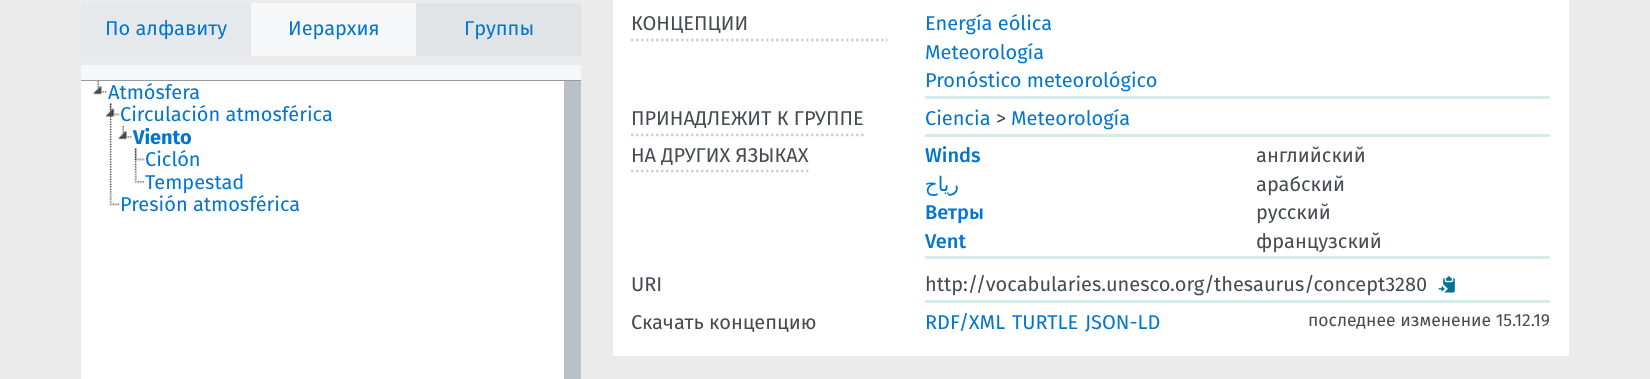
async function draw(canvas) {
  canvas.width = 1650;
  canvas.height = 379;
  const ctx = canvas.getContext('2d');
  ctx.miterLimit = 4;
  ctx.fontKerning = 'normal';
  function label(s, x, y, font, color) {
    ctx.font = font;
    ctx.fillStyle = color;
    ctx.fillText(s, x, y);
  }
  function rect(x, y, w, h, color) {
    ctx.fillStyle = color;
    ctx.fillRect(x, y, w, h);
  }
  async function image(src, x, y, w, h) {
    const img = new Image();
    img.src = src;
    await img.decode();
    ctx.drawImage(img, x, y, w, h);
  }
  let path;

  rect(0, 0, 1650, 379, '#ebebeb');
  rect(416, 3, 165, 53, '#e0e4e7');
  rect(81, 3, 170, 53, '#e6e9eb');
  label('По алфавиту', 105, 35, '20px Fira Sans', '#0075d1');
  rect(251, 3, 165, 53, '#f6f7f8');
  label('Иерархия', 288, 35, '20px Fira Sans', '#0075d1');
  label('Группы', 464, 35, '20px Fira Sans', '#0075d1');
  rect(81, 65, 500, 15, '#f6f7f8');
  rect(81, 80, 500, 1, '#999');
  rect(81, 81, 483, 298, '#fff');
  await image('assets/img1.png', 93, 81, 14, 14);
  label('Atmósfera', 108, 99, '20px Fira Sans', '#0075d1');
  await image('assets/img2.png', 109, 103, 3, 90);
  await image('assets/img3.png', 105, 103, 15, 14);
  label('Circulación atmosférica', 120, 121, '20px Fira Sans', '#0075d1');
  await image('assets/img4.png', 118, 126, 14, 14);
  label('Viento', 133, 144, 'bold 20px Fira Sans', '#0075d1');
  await image('assets/img5.png', 134, 148, 3, 23);
  await image('assets/img6.png', 134, 148, 11, 13);
  label('Ciclón', 145, 166, '20px Fira Sans', '#0075d1');
  await image('assets/img7.png', 134, 171, 10, 13);
  label('Tempestad', 145, 189, '20px Fira Sans', '#0075d1');
  await image('assets/img8.png', 109, 193, 10, 13);
  label('Presión atmosférica', 120, 211, '20px Fira Sans', '#0075d1');
  rect(564, 81, 17, 298, '#b9c1c6');
  rect(613, 0, 956, 356, '#fff');
  path = new Path2D('M631 40H887.5');
  ctx.strokeStyle = '#cfcfcf';
  ctx.lineWidth = 2.5;
  ctx.setLineDash([2.5, 2.5]);
  ctx.stroke(path);
  label('КОНЦЕПЦИИ', 631, 30, '20px Fira Sans', '#474b4f');
  rect(925, 96, 625, 3, '#d4edeb');
  label('Energía eólica', 925, 30, '20px Fira Sans', '#0075d1');
  label('Meteorología', 925, 59, '20px Fira Sans', '#0075d1');
  label('Pronóstico meteorológico', 925, 87, '20px Fira Sans', '#0075d1');
  path = new Path2D('M631 135H864');
  ctx.stroke(path);
  label('ПРИНАДЛЕЖИТ К ГРУППЕ', 631, 125, '20px Fira Sans', '#474b4f');
  rect(925, 134, 625, 3, '#d4edeb');
  label('Ciencia', 925, 125, '20px Fira Sans', '#0075d1');
  label('>', 996, 125, '20px Fira Sans', '#474b4f');
  label('Meteorología', 1011, 125, '20px Fira Sans', '#0075d1');
  path = new Path2D('M631 171H809');
  ctx.stroke(path);
  label('НА ДРУГИХ ЯЗЫКАХ', 631, 162, '20px Fira Sans', '#474b4f');
  rect(925, 256, 625, 3, '#d4edeb');
  label('Winds', 925, 162, '500 20px Fira Sans', '#0075d1');
  label('английский', 1256, 162, '20px Fira Sans', '#474b4f');
  ctx.direction = 'rtl';
  label('رياح', 959, 191, '20px DejaVu Sans', '#0075d1');
  ctx.direction = 'ltr';
  label('арабский', 1256, 191, '20px Fira Sans', '#474b4f');
  label('Ветры', 925, 219, '500 20px Fira Sans', '#0075d1');
  label('русский', 1256, 219, '20px Fira Sans', '#474b4f');
  label('Vent', 925, 248, '500 20px Fira Sans', '#0075d1');
  label('французский', 1256, 248, '20px Fira Sans', '#474b4f');
  label('URI', 631, 291, '20px Fira Sans', '#474b4f');
  rect(925, 300, 625, 3, '#d4edeb');
  label('http://vocabularies.unesco.org/thesaurus/concept3280', 925, 291, '20px Fira Sans', '#474b4f');
  await image('assets/img9.png', 1438, 276, 17, 17);
  label('Скачать концепцию', 631, 329, '20px Fira Sans', '#474b4f');
  label('RDF/XML', 925, 329, '20px Fira Sans', '#0075d1');
  label('TURTLE', 1012, 329, '20px Fira Sans', '#0075d1');
  label('JSON-LD', 1085, 329, '20px Fira Sans', '#0075d1');
  label('последнее изменение 15.12.19', 1308, 326, '17.5px Fira Sans', '#474b4f');
}

draw(document.querySelector('canvas'));
